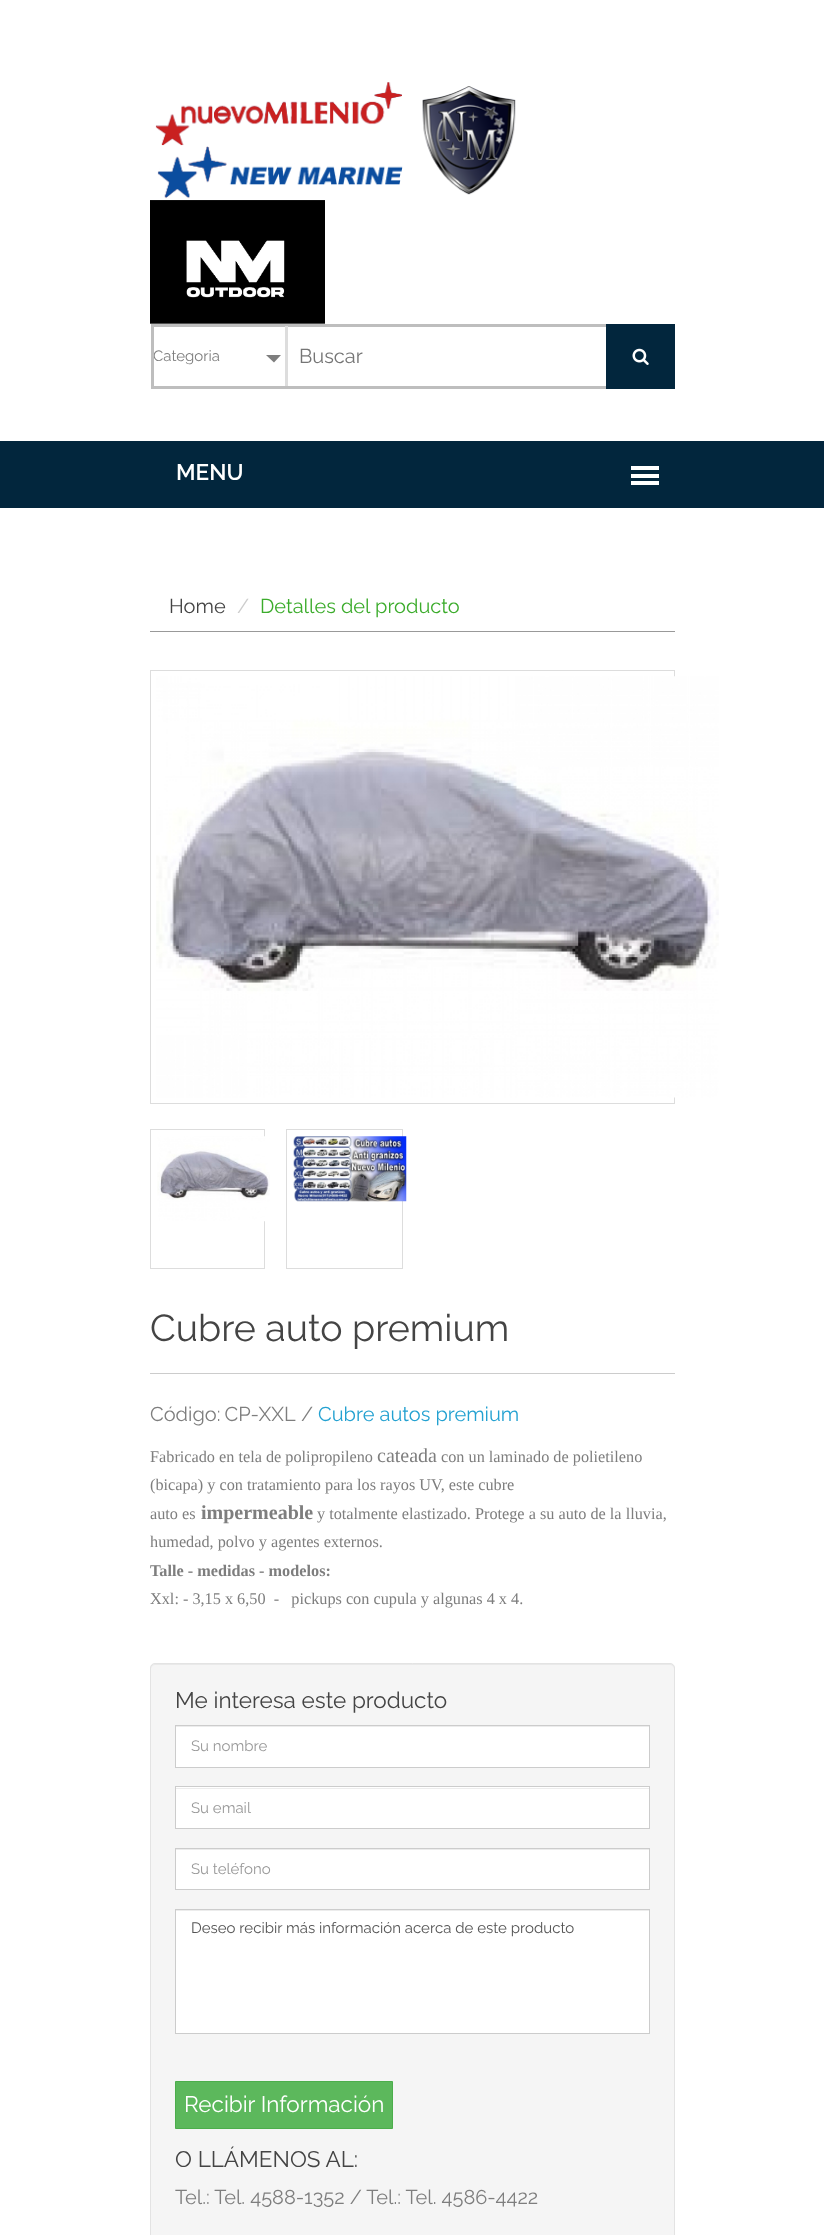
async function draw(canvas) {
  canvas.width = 824;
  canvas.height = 2235;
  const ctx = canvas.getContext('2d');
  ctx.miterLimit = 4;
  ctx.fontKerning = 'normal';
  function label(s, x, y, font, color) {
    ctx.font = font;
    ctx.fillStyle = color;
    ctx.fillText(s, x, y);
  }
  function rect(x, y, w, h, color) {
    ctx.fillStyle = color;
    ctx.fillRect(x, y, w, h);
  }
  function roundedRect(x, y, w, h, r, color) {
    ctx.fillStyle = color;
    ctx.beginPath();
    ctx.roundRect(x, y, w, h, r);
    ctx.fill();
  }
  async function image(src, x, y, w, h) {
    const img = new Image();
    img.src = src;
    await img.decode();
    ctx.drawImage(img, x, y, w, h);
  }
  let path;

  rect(0, 0, 824, 2235, '#fff');
  await image('assets/img1.png', 155, 82, 361, 117);
  await image('assets/img2.png', 150, 200, 175, 124);
  ctx.fillStyle = '#7e7e7e';
  path = new Path2D('M266 355H281L274 362.5Z');
  ctx.fill(path);
  ctx.strokeStyle = '#bebebe';
  ctx.lineWidth = 3;
  ctx.strokeRect(152.5, 325.5, 521, 62);
  ctx.save();
  ctx.beginPath();
  ctx.rect(154, 346, 112, 22);
  ctx.clip();
  label('Categoria', 153, 361, '15px Raleway', '#7e7e7e');
  ctx.restore();
  rect(285, 326, 3, 60, '#ddd');
  label('Buscar', 299, 363, '20px Raleway', '#757575');
  rect(606, 324, 69, 65, '#02263d');
  await image('assets/img3.png', 632, 348, 17, 17);
  rect(0, 441, 824, 67, '#02263d');
  label('MENU', 176, 480, '600 22.5px Raleway', '#fff');
  rect(631, 466, 28, 4, '#fff');
  rect(631, 474, 28, 4, '#fff');
  rect(631, 481, 28, 4, '#fff');
  rect(150, 631, 525, 1, '#999');
  label('Home', 169, 613, '20px Raleway', '#444');
  label('/', 237, 613, '20px Raleway', '#ccc');
  label('Detalles del producto', 260, 613, '20px Raleway', '#3cac2c');
  ctx.strokeStyle = '#ddd';
  ctx.lineWidth = 1;
  ctx.strokeRect(150.5, 670.5, 524, 433);
  await image('assets/img4.png', 156, 676, 563, 422);
  ctx.strokeRect(150.5, 1129.5, 114, 139);
  await image('assets/img5.png', 157, 1136, 113, 86);
  ctx.strokeRect(286.5, 1129.5, 116, 139);
  await image('assets/img6.png', 293, 1136, 114, 66);
  label('Cubre auto premium', 150, 1341, '37.5px Raleway', '#444');
  rect(150, 1373, 525, 1, '#ccc');
  ctx.wordSpacing = '-1px';
  label('Código: CP-XXL', 150, 1421, '20px Raleway', '#7e7e7e');
  ctx.wordSpacing = '0px';
  label('/', 301, 1421, '20px Raleway', '#7e7e7e');
  label('Cubre autos premium', 318, 1421, '20px Raleway', '#23a1d1');
  label('Fabricado en tela de polipropileno', 150, 1462, '16.25px Liberation Serif', '#7e7e7e');
  label('cateada', 377, 1462, '20px Liberation Serif', '#7e7e7e');
  label('con un laminado de polietileno', 441, 1462, '16.25px Liberation Serif', '#7e7e7e');
  label('(bicapa) y con tratamiento para los rayos UV, este cubre', 150, 1490, '16.25px Liberation Serif', '#7e7e7e');
  label('auto es', 150, 1519, '16.25px Liberation Serif', '#7e7e7e');
  label('impermeable', 201, 1519, 'bold 20px Liberation Serif', '#7e7e7e');
  label('y totalmente elastizado. Protege a su auto de la lluvia,', 317, 1519, '16.25px Liberation Serif', '#7e7e7e');
  label('humedad, polvo y agentes externos.', 150, 1547, '16.25px Liberation Serif', '#7e7e7e');
  label('Talle - medidas - modelos:', 150, 1576, 'bold 16.25px Liberation Serif', '#7e7e7e');
  label('Xxl: - 3,15 x 6,50  -   pickups con cupula y algunas 4 x 4.', 150, 1604, '16.25px Liberation Serif', '#7e7e7e');
  roundedRect(150, 1663, 525, 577, 5, '#f5f5f5');
  ctx.fillStyle = '#e9e9e9';
  path = new Path2D('M155 1665H670C672 1665 674 1667 674 1669V1668C674 1666 672 1664 670 1664H155C153 1664 151 1666 151 1668V1669C151 1667 153 1665 155 1665Z');
  ctx.fill(path);
  ctx.beginPath();
  ctx.roundRect(150.5, 1663.5, 524, 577, 4.5);
  ctx.strokeStyle = '#e3e3e3';
  ctx.stroke();
  label('Me interesa este producto', 175, 1708, '22.5px Raleway', '#444');
  rect(176, 1727, 473, 40, '#fff');
  rect(176, 1726, 473, 1, '#ececec');
  ctx.strokeStyle = '#ccc';
  ctx.strokeRect(175.5, 1725.5, 474, 42);
  label('Su nombre', 191, 1751, '15px Raleway', '#999');
  rect(176, 1787, 473, 41, '#fff');
  rect(176, 1788, 473, 1, '#ececec');
  ctx.strokeRect(175.5, 1786.5, 474, 42);
  label('Su email', 191, 1813, '15px Raleway', '#999');
  rect(176, 1850, 473, 39, '#fff');
  rect(176, 1849, 473, 1, '#ececec');
  ctx.strokeRect(175.5, 1848.5, 474, 41);
  label('Su teléfono', 191, 1874, '15px Raleway', '#999');
  rect(176, 1911, 473, 122, '#fff');
  rect(176, 1910, 473, 1, '#ececec');
  ctx.strokeRect(175.5, 1909.5, 474, 124);
  label('Deseo recibir más información acerca de este producto', 191, 1933, '15px Raleway', '#555');
  ctx.fillStyle = '#5cb85c';
  ctx.beginPath();
  ctx.rect(175.5, 2081.5, 217, 47);
  ctx.fill();
  ctx.strokeStyle = '#4cae4c';
  ctx.stroke();
  label('Recibir Información', 184, 2112, '22.5px Raleway', '#fff');
  label('O LLÁMENOS AL:', 175, 2167, '22.5px Raleway', '#444');
  label('Tel.: Tel. 4588-1352 / Tel.: Tel. 4586-4422', 175, 2204, '20px Raleway', '#7e7e7e');
}

draw(document.querySelector('canvas'));
